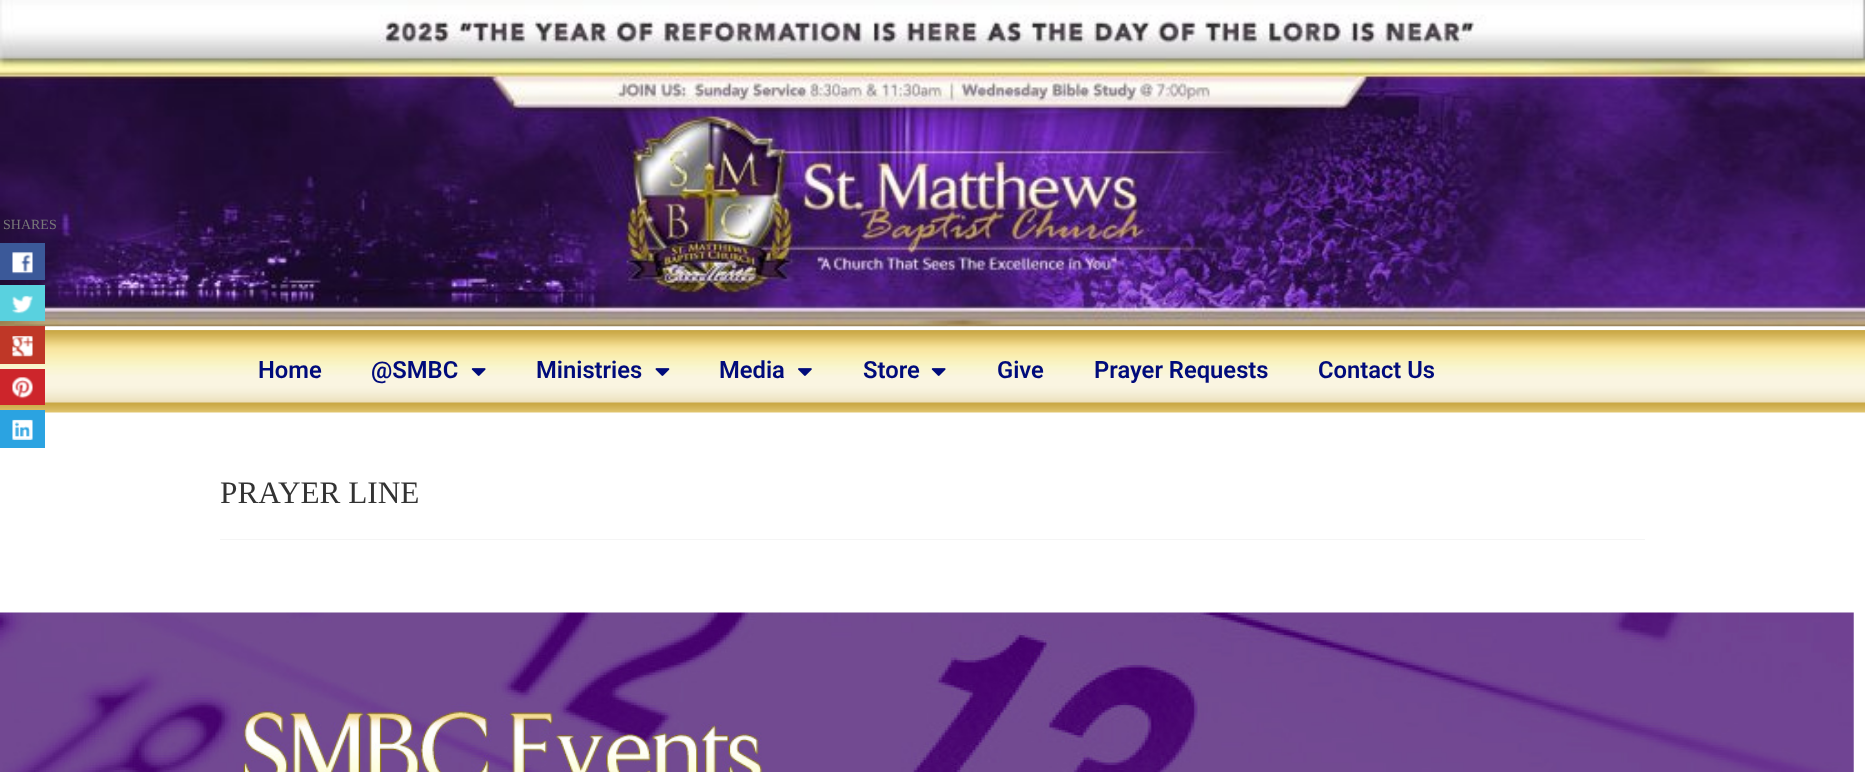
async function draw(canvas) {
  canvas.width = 1865;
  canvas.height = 772;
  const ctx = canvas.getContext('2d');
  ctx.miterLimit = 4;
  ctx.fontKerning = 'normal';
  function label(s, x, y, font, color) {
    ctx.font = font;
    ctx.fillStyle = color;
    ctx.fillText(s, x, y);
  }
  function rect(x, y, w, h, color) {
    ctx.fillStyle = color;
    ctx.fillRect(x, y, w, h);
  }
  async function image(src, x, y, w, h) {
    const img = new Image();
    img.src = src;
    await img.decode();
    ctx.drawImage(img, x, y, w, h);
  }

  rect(0, 0, 1865, 772, '#fff');
  await image('assets/img6.png', 0, 0, 1865, 327);
  label('SHARES', 3, 229, '14px Liberation Serif', '#777');
  rect(0, 243, 45, 37, '#3b5999');
  await image('assets/img1.png', 12, 252, 21, 22);
  rect(0, 285, 45, 36, '#59d1df');
  await image('assets/img2.png', 12, 295, 21, 19);
  await image('assets/img7.png', 0, 330, 1865, 83);
  rect(0, 326, 45, 38, '#bf3727');
  await image('assets/img3.png', 12, 336, 21, 21);
  rect(0, 369, 45, 36, '#cd252b');
  await image('assets/img4.png', 12, 377, 21, 22);
  rect(0, 410, 45, 38, '#2ba3e1');
  await image('assets/img5.png', 12, 419, 21, 21);
  label('Home', 258, 378, '600 23.75px Roboto', '#000b7b');
  label('@SMBC', 371, 378, '600 23.75px Roboto', '#000b7b');
  await image('assets/img8.png', 471, 368, 15, 8);
  label('Ministries', 536, 378, '600 23.75px Roboto', '#000b7b');
  await image('assets/img9.png', 655, 368, 15, 8);
  label('Media', 719, 378, '600 23.75px Roboto', '#000b7b');
  await image('assets/img10.png', 798, 368, 14, 8);
  label('Store', 863, 378, '600 23.75px Roboto', '#000b7b');
  await image('assets/img8.png', 931, 368, 15, 8);
  label('Give', 997, 378, '600 23.75px Roboto', '#000b7b');
  label('Prayer Requests', 1094, 378, '600 23.75px Roboto', '#000b7b');
  label('Contact Us', 1318, 378, '600 23.75px Roboto', '#000b7b');
  rect(220, 539, 1425, 1, '#f5f5f5');
  label('PRAYER LINE', 220, 503, '31.25px Liberation Serif', '#333');
  await image('assets/img11.png', 0, 612, 1854, 160);
}

draw(document.querySelector('canvas'));
